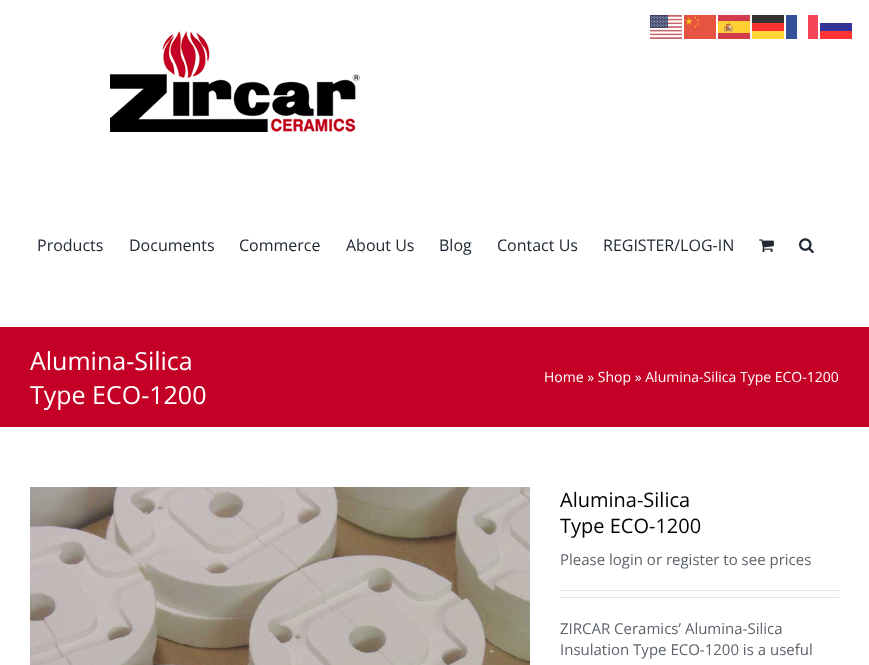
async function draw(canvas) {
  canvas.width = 869;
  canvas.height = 665;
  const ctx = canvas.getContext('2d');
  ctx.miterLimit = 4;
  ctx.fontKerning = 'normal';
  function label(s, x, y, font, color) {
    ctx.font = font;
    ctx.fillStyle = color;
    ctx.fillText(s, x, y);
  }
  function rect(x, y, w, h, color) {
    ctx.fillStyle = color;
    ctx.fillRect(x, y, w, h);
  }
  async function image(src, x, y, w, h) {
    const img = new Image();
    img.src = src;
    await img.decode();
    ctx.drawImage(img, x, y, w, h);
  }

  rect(0, 0, 869, 665, '#fff');
  await image('assets/img1.png', 650, 15, 32, 24);
  await image('assets/img2.png', 684, 15, 32, 24);
  await image('assets/img3.png', 718, 15, 32, 24);
  rect(752, 15, 32, 8, '#333');
  rect(786, 15, 11, 24, '#335199');
  rect(808, 15, 10, 24, '#f54659');
  rect(752, 23, 32, 8, '#f33');
  rect(820, 23, 32, 8, '#343498');
  rect(752, 31, 32, 8, '#ffd633');
  rect(820, 31, 32, 8, '#fe3434');
  await image('assets/img4.png', 110, 31, 250, 101);
  label('Products', 37, 251, '16px Open Sans', '#212934');
  label('Documents', 129, 251, '16px Open Sans', '#212934');
  label('Commerce', 239, 251, '16px Open Sans', '#212934');
  label('About Us', 346, 251, '16px Open Sans', '#212934');
  label('Blog', 439, 251, '16px Open Sans', '#212934');
  label('Contact Us', 497, 251, '16px Open Sans', '#212934');
  label('REGISTER/LOG-IN', 603, 251, '16px Open Sans', '#212934');
  await image('assets/img5.png', 759, 239, 15, 13);
  await image('assets/img6.png', 799, 238, 15, 16);
  rect(0, 327, 869, 100, '#c40026');
  label('Alumina-Silica', 30, 370, '25px Open Sans', '#fff');
  label('Type ECO-1200', 30, 404, '25px Open Sans', '#fff');
  label('Home » Shop » Alumina-Silica Type ECO-1200', 544, 382, '14px Open Sans', '#fff');
  await image('assets/img7.png', 30, 487, 500, 178);
  label('Alumina-Silica', 560, 507, '20px Open Sans', '#000');
  label('Type ECO-1200', 560, 533, '20px Open Sans', '#000');
  label('Please login or register to see prices', 560, 565, '15px Open Sans', '#5d636b');
  rect(560, 590, 279, 1, '#e2e2e2');
  rect(560, 597, 279, 1, '#e2e2e2');
  label('ZIRCAR Ceramics’ Alumina-Silica', 560, 634, '15px Open Sans', '#5d636b');
  label('Insulation Type ECO-1200 is a useful', 560, 655, '15px Open Sans', '#5d636b');
}

draw(document.querySelector('canvas'));
